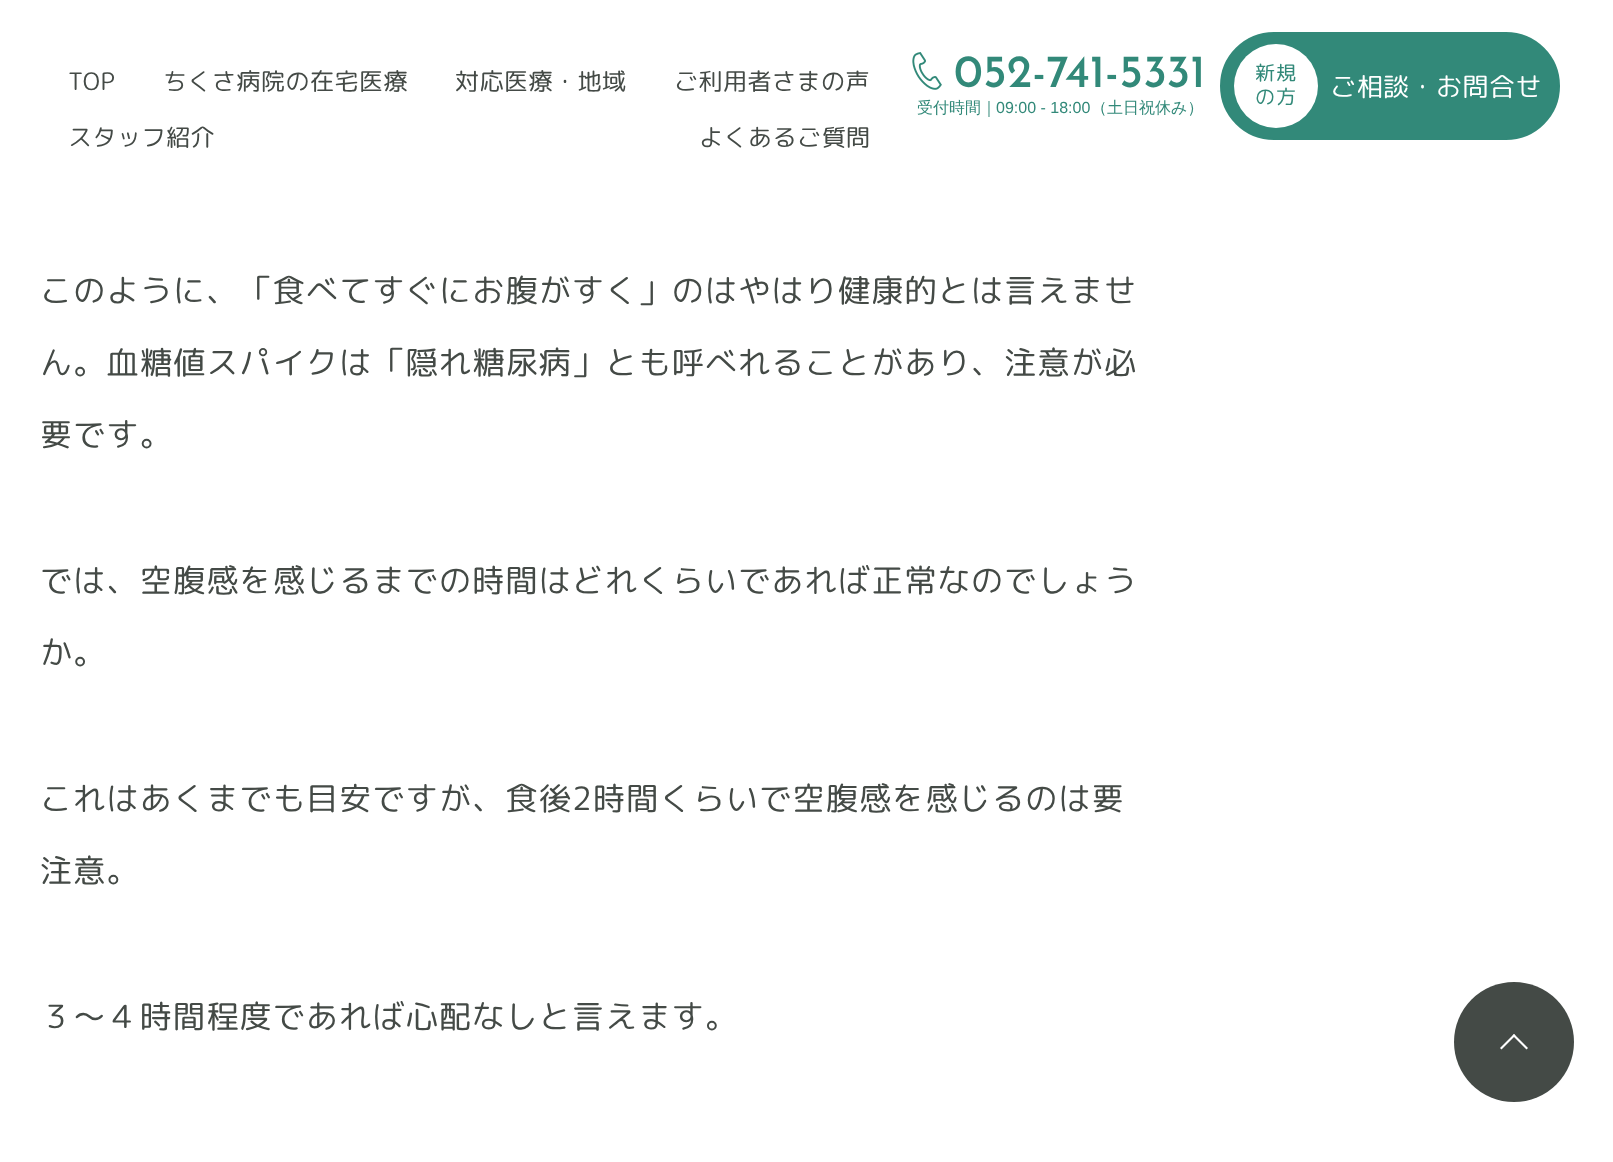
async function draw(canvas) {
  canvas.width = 1613;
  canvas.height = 1162;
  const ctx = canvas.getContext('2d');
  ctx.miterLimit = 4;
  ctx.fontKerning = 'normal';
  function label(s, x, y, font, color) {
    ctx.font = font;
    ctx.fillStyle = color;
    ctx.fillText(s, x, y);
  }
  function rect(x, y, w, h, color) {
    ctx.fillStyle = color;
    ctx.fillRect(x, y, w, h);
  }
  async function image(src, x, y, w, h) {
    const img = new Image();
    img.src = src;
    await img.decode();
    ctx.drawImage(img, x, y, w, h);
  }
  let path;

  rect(0, 0, 1613, 1162, '#fff');
  ctx.letterSpacing = '0.5px';
  label('TOP', 68, 90, '24px "Rounded Mplus 1c"', '#444a46');
  label('ちくさ病院の在宅医療', 163, 90, '24px "Rounded Mplus 1c"', '#444a46');
  label('対応医療・地域', 455, 90, '24px "Rounded Mplus 1c"', '#444a46');
  label('ご利用者さまの声', 674, 90, '24px "Rounded Mplus 1c"', '#444a46');
  label('スタッフ紹介', 68, 146, '24px "Rounded Mplus 1c"', '#444a46');
  label('よくあるご質問', 699, 146, '24px "Rounded Mplus 1c"', '#444a46');
  await image('assets/img1.png', 912, 52, 30, 38);
  ctx.letterSpacing = '0px';
  label('052-741-5331', 954, 87, '500 46px Josefin Sans', '#328979');
  label('受付時間｜', 917, 113, '500 16px WenQuanYi Zen Hei', '#328979');
  label('09:00 - 18:00', 996, 113, '16px Liberation Sans', '#328979');
  label('（土日祝休み）', 1091, 113, '500 16px WenQuanYi Zen Hei', '#328979');
  ctx.beginPath();
  ctx.roundRect(1221, 33, 338, 106, 53);
  ctx.fill();
  ctx.strokeStyle = '#328979';
  ctx.lineWidth = 2;
  ctx.stroke();
  ctx.fillStyle = '#fff';
  ctx.beginPath();
  ctx.arc(1276, 86, 42, 0, 2 * Math.PI);
  ctx.fill();
  ctx.letterSpacing = '1px';
  label('新規', 1255, 80, '20px "Rounded Mplus 1c"', '#328979');
  label('の方', 1255, 104, '20px "Rounded Mplus 1c"', '#328979');
  ctx.letterSpacing = '0.5px';
  label('ご相談・お問合せ', 1330, 96, '26px "Rounded Mplus 1c"', '#fff');
  ctx.letterSpacing = '1.25px';
  label('このように、「食べてすぐにお腹がすく」のはやはり健康的とは言えませ', 40, 302, '32px "Rounded Mplus 1c"', '#444a46');
  label('ん。血糖値スパイクは「隠れ糖尿病」とも呼べれることがあり、注意が必', 40, 374, '32px "Rounded Mplus 1c"', '#444a46');
  label('要です。', 40, 446, '32px "Rounded Mplus 1c"', '#444a46');
  label('では、空腹感を感じるまでの時間はどれくらいであれば正常なのでしょう', 40, 592, '32px "Rounded Mplus 1c"', '#444a46');
  label('か。', 40, 664, '32px "Rounded Mplus 1c"', '#444a46');
  label('これはあくまでも目安ですが、食後2時間くらいで空腹感を感じるのは要', 40, 810, '32px "Rounded Mplus 1c"', '#444a46');
  label('注意。', 40, 882, '32px "Rounded Mplus 1c"', '#444a46');
  label('３～４時間程度であれば心配なしと言えます。', 40, 1028, '32px "Rounded Mplus 1c"', '#444a46');
  ctx.beginPath();
  ctx.arc(1514, 1042, 60, 0, 2 * Math.PI);
  ctx.fill();
  ctx.fillStyle = '#fff';
  path = new Path2D('M1514 1034L1528 1048L1526.5 1049.5L1512.5 1035.5Z');
  ctx.fill(path);
  path = new Path2D('M1514 1034L1515.5 1035.5L1501.5 1049.5L1500 1048Z');
  ctx.fill(path);
}

draw(document.querySelector('canvas'));
